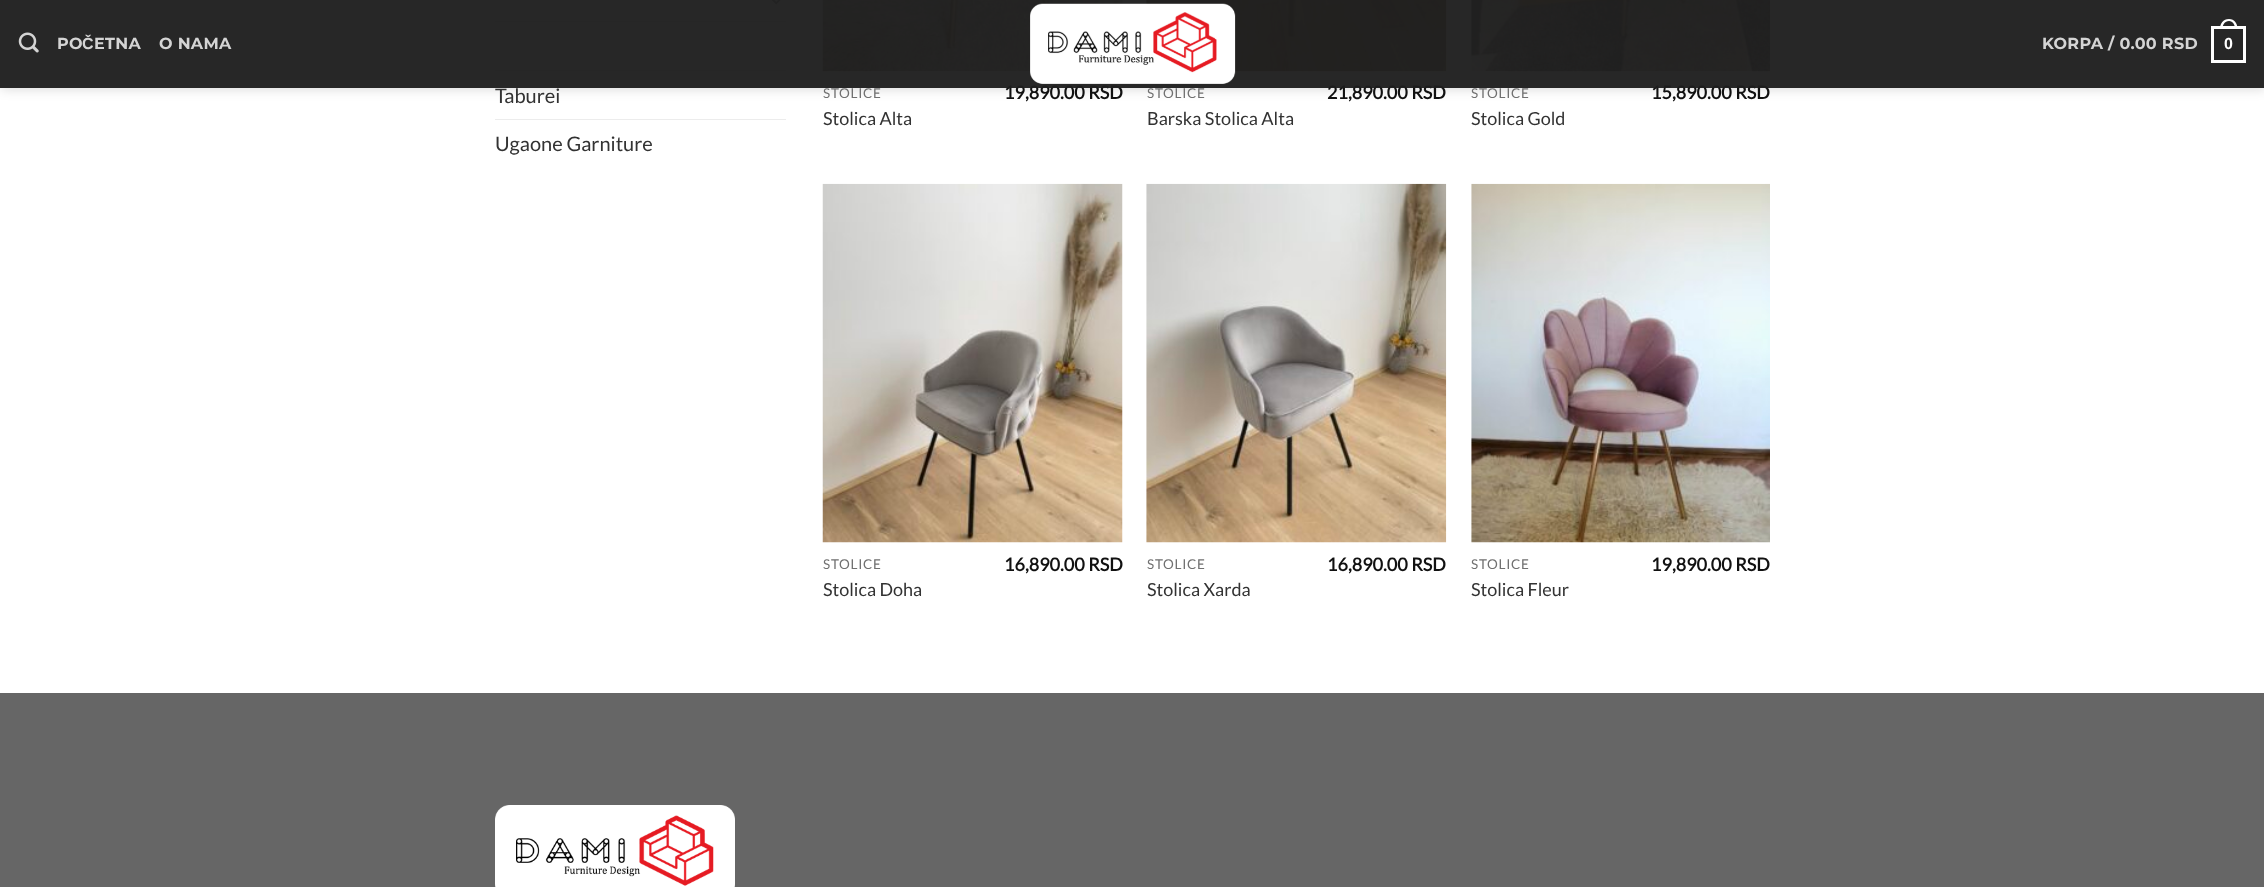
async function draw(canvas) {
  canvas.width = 2264;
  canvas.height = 887;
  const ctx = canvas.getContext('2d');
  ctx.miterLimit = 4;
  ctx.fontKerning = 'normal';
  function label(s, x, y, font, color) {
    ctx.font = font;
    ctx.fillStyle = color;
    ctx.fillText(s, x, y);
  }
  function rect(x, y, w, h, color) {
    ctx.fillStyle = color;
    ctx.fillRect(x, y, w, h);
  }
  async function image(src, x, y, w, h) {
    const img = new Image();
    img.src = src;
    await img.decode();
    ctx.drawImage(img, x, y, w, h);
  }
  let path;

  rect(0, 0, 2264, 887, '#fff');
  await image('assets/img3.png', 772, 0, 9, 5);
  rect(495, 21, 291, 1, '#ececec');
  rect(495, 70, 291, 1, '#ececec');
  await image('assets/img4.png', 822, 0, 301, 72);
  await image('assets/img5.png', 1146, 0, 301, 72);
  await image('assets/img6.png', 1471, 0, 299, 72);
  ctx.save();
  path = new Path2D('M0 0H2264V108H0ZM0 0H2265V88H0Z');
  ctx.clip(path, 'evenodd');
  ctx.fillStyle = '#00000026';
  ctx.filter = 'blur(6px)';
  ctx.beginPath();
  ctx.rect(1, 1, 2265, 88);
  ctx.fill();
  ctx.filter = 'none';
  ctx.restore();
  label('19,890.00 RSD', 1004, 99, 'bold 18px Lato', '#111');
  label('21,890.00 RSD', 1327, 99, 'bold 18px Lato', '#111');
  label('15,890.00 RSD', 1651, 99, 'bold 18px Lato', '#111');
  rect(0, 0, 2264, 88, '#1e1e1ecc');
  rect(0, 0, 2264, 88, '#1e1e1ecc');
  await image('assets/img1.png', 18, 32, 21, 21);
  ctx.letterSpacing = '0.3px';
  label('PO', 57, 49, 'bold 16px Montserrat', '#d4d4d4');
  label('Č', 82, 49, 'bold 16px Liberation Sans', '#d4d4d4');
  label('ETNA', 94, 49, 'bold 16px Montserrat', '#d4d4d4');
  label('O NAMA', 159, 49, 'bold 16px Montserrat', '#d4d4d4');
  await image('assets/img2.png', 1030, 3, 206, 81);
  label('KORPA / 0.00 RSD', 2042, 49, 'bold 16px Montserrat', '#d4d4d4');
  ctx.strokeStyle = '#fff';
  ctx.lineWidth = 3;
  ctx.strokeRect(2212.5, 27.5, 32, 34);
  ctx.fillStyle = '#fff';
  path = new Path2D('M2229 19C2234.5 19 2237.5 23.5 2237.5 29H2220C2220 23.5 2223 19 2229 19ZM2229 21C2233 21 2235 25 2235 29H2222.5C2222.5 25 2224.5 21 2229 21Z');
  ctx.fill(path, 'evenodd');
  label('0', 2224, 49, 'bold 16px Liberation Sans', '#fff');
  ctx.letterSpacing = '0px';
  label('Taburei', 495, 103, '20px Lato', '#333');
  rect(495, 119, 291, 1, '#ececec');
  label('Ugaone Garniture', 495, 151, '20px Lato', '#333');
  ctx.letterSpacing = '0.75px';
  label('STOLICE', 823, 98, '13.5px Lato', '#707070');
  ctx.letterSpacing = '0px';
  label('Stolica Alta', 823, 125, '18px Lato', '#333');
  ctx.letterSpacing = '0.75px';
  label('STOLICE', 1147, 98, '13.5px Lato', '#707070');
  ctx.letterSpacing = '0px';
  label('Barska Stolica Alta', 1147, 125, '18px Lato', '#333');
  ctx.letterSpacing = '0.75px';
  label('STOLICE', 1471, 98, '13.5px Lato', '#707070');
  ctx.letterSpacing = '0px';
  label('Stolica Gold', 1471, 125, '18px Lato', '#333');
  await image('assets/img7.png', 822, 183, 301, 360);
  ctx.letterSpacing = '0.75px';
  label('STOLICE', 823, 569, '13.5px Lato', '#707070');
  ctx.letterSpacing = '0px';
  label('Stolica Doha', 823, 596, '18px Lato', '#333');
  label('16,890.00 RSD', 1004, 571, 'bold 18px Lato', '#111');
  await image('assets/img8.png', 1146, 183, 301, 360);
  ctx.letterSpacing = '0.75px';
  label('STOLICE', 1147, 569, '13.5px Lato', '#707070');
  ctx.letterSpacing = '0px';
  label('Stolica Xarda', 1147, 596, '18px Lato', '#333');
  label('16,890.00 RSD', 1327, 571, 'bold 18px Lato', '#111');
  await image('assets/img9.png', 1471, 183, 299, 360);
  ctx.letterSpacing = '0.75px';
  label('STOLICE', 1471, 569, '13.5px Lato', '#707070');
  ctx.letterSpacing = '0px';
  label('Stolica Fleur', 1471, 596, '18px Lato', '#333');
  label('19,890.00 RSD', 1651, 571, 'bold 18px Lato', '#111');
  rect(0, 693, 2264, 194, '#666');
  await image('assets/img10.png', 495, 805, 240, 82);
}

draw(document.querySelector('canvas'));
